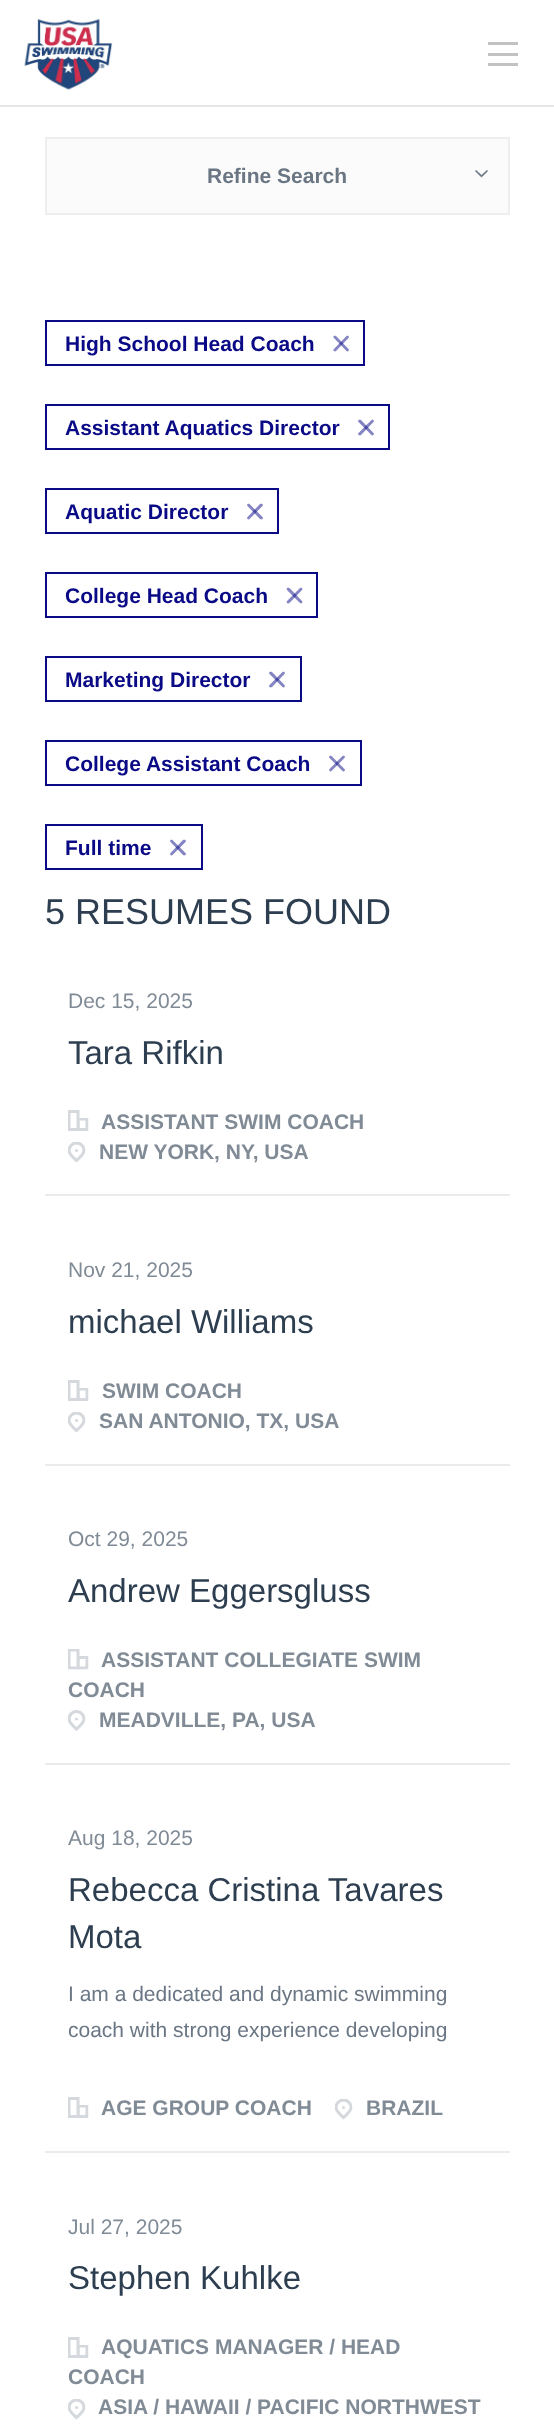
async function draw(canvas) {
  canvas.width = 554;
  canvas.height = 2432;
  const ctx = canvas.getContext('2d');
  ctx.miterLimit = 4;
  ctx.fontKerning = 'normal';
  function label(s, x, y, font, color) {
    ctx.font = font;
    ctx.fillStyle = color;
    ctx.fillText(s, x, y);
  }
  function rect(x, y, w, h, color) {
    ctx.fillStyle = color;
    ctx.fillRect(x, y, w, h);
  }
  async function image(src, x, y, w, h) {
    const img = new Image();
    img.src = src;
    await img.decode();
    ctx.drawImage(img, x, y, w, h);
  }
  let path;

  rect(0, 0, 554, 2432, '#fff');
  rect(0, 105, 554, 2, '#e4e6e8');
  await image('assets/img1.png', 24, 18, 89, 72);
  rect(488, 53, 30, 3, '#c2c2c2');
  rect(488, 42, 30, 3, '#c2c2c2');
  rect(488, 63, 30, 3, '#c2c2c2');
  ctx.fillStyle = '#fbfbfb';
  ctx.beginPath();
  ctx.rect(46, 138, 463, 76);
  ctx.fill();
  ctx.strokeStyle = '#eee';
  ctx.lineWidth = 2;
  ctx.stroke();
  label('Refine Search', 207, 183, 'bold 21px Liberation Sans', '#6a7683');
  path = new Path2D('M488 171L481.5 177.5V175L487 170Z');
  ctx.fill(path);
  ctx.fillStyle = '#2c3d50b3';
  path = new Path2D('M481.5 177.5L475 171L476 170L481.5 175Z');
  ctx.fill(path);
  ctx.strokeStyle = '#0a0a87';
  ctx.strokeRect(46, 321, 318, 44);
  label('High School Head Coach', 65, 351, 'bold 21px Liberation Sans', '#0a0a87');
  ctx.fillStyle = '#8585c3';
  path = new Path2D('M334 349L346.5 336C347 335.5 348 335.5 348.5 336C349 336.5 349 337.5 348.5 338L336 351C335.5 351.5 334.5 351.5 334 351C333 350.5 333 349.5 334 349Z');
  ctx.fill(path);
  ctx.fillStyle = '#0a0a8780';
  path = new Path2D('M336 336L348.5 349C349 349.5 349 350.5 348.5 351C348 351.5 347 351.5 346.5 351L334 338C333 337.5 333 336.5 334 336C334.5 335.5 335.5 335.5 336 336Z');
  ctx.fill(path);
  ctx.strokeRect(46, 405, 343, 44);
  label('Assistant Aquatics Director', 65, 435, 'bold 21px Liberation Sans', '#0a0a87');
  ctx.fillStyle = '#8585c3';
  path = new Path2D('M358.5 433L371.5 420C372 419.5 373 419.5 373.5 420C374 420.5 374 421.5 373.5 422L361 435C360.5 435.5 359.5 435.5 358.5 435C358 434.5 358 433.5 358.5 433Z');
  ctx.fill(path);
  ctx.fillStyle = '#0a0a8780';
  path = new Path2D('M361 420L373.5 433C374 433.5 374 434.5 373.5 435C373 435.5 372 435.5 371.5 435L358.5 422C358 421.5 358 420.5 358.5 420C359.5 419.5 360.5 419.5 361 420Z');
  ctx.fill(path);
  ctx.strokeRect(46, 489, 232, 44);
  label('Aquatic Director', 65, 519, 'bold 21px Liberation Sans', '#0a0a87');
  ctx.fillStyle = '#8585c3';
  path = new Path2D('M247.5 517L260 504C261 503.5 261.5 503.5 262.5 504C263 504.5 263 505.5 262.5 506L249.5 519C249 519.5 248 519.5 247.5 519C247 518.5 247 517.5 247.5 517Z');
  ctx.fill(path);
  ctx.fillStyle = '#0a0a8780';
  path = new Path2D('M249.5 504L262.5 517C263 517.5 263 518.5 262.5 519C261.5 519.5 261 519.5 260 519L247.5 506C247 505.5 247 504.5 247.5 504C248 503.5 249 503.5 249.5 504Z');
  ctx.fill(path);
  ctx.strokeRect(46, 573, 271, 44);
  label('College Head Coach', 65, 603, 'bold 21px Liberation Sans', '#0a0a87');
  ctx.fillStyle = '#8585c3';
  path = new Path2D('M287 601L300 588C300.5 587.5 301.5 587.5 302 588C302.5 588.5 302.5 589.5 302 590L289.5 603C288.5 603.5 287.5 603.5 287 603C286.5 602.5 286.5 601.5 287 601Z');
  ctx.fill(path);
  ctx.fillStyle = '#0a0a8780';
  path = new Path2D('M289.5 588L302 601C302.5 601.5 302.5 602.5 302 603C301.5 603.5 300.5 603.5 300 603L287 590C286.5 589.5 286.5 588.5 287 588C287.5 587.5 288.5 587.5 289.5 588Z');
  ctx.fill(path);
  ctx.strokeRect(46, 657, 255, 44);
  label('Marketing Director', 65, 687, 'bold 21px Liberation Sans', '#0a0a87');
  ctx.fillStyle = '#8585c3';
  path = new Path2D('M269.5 685L282.5 672C283 671.5 284 671.5 284.5 672C285 672.5 285 673.5 284.5 674L272 687C271 687.5 270 687.5 269.5 687C269 686.5 269 685.5 269.5 685Z');
  ctx.fill(path);
  ctx.fillStyle = '#0a0a8780';
  path = new Path2D('M272 672L284.5 685C285 685.5 285 686.5 284.5 687C284 687.5 283 687.5 282.5 687L269.5 674C269 673.5 269 672.5 269.5 672C270 671.5 271 671.5 272 672Z');
  ctx.fill(path);
  ctx.strokeRect(46, 741, 315, 44);
  label('College Assistant Coach', 65, 771, 'bold 21px Liberation Sans', '#0a0a87');
  ctx.fillStyle = '#8585c3';
  path = new Path2D('M329.5 769L342.5 756C343 755.5 344 755.5 344.5 756C345 756.5 345 757.5 344.5 758L331.5 771C331 771.5 330 771.5 329.5 771C329 770.5 329 769.5 329.5 769Z');
  ctx.fill(path);
  ctx.fillStyle = '#0a0a8780';
  path = new Path2D('M331.5 756L344.5 769C345 769.5 345 770.5 344.5 771C344 771.5 343 771.5 342.5 771L329.5 758C329 757.5 329 756.5 329.5 756C330 755.5 331 755.5 331.5 756Z');
  ctx.fill(path);
  ctx.strokeRect(46, 825, 156, 44);
  label('Full time', 65, 855, 'bold 21px Liberation Sans', '#0a0a87');
  ctx.fillStyle = '#8585c3';
  path = new Path2D('M170.5 853L183 840C183.5 839.5 184.5 839.5 185.5 840C186 840.5 186 841.5 185.5 842L172.5 855C172 855.5 171 855.5 170.5 855C170 854.5 170 853.5 170.5 853Z');
  ctx.fill(path);
  ctx.fillStyle = '#0a0a8780';
  path = new Path2D('M172.5 840L185.5 853C186 853.5 186 854.5 185.5 855C184.5 855.5 183.5 855.5 183 855L170.5 842C170 841.5 170 840.5 170.5 840C171 839.5 172 839.5 172.5 840Z');
  ctx.fill(path);
  label('5 RESUMES FOUND', 45, 924, '36px Liberation Sans', '#2d3e50');
  rect(45, 1194, 465, 2, '#eaebed');
  label('Dec 15, 2025', 68, 1008, '21px Liberation Sans', '#818b96');
  label('Tara Rifkin', 68, 1064, '33px Liberation Sans', '#2d3e50');
  await image('assets/img2.png', 68, 1110, 21, 21);
  label('ASSISTANT SWIM COACH', 101, 1129, 'bold 21px Liberation Sans', '#818b96');
  await image('assets/img3.png', 68, 1142, 18, 21);
  label('NEW YORK, NY, USA', 99, 1159, 'bold 21px Liberation Sans', '#818b96');
  rect(45, 1464, 465, 2, '#eaebed');
  label('Nov 21, 2025', 68, 1277, '21px Liberation Sans', '#818b96');
  label('michael Williams', 68, 1333, '33px Liberation Sans', '#2d3e50');
  await image('assets/img2.png', 68, 1380, 21, 21);
  label('SWIM COACH', 102, 1398, 'bold 21px Liberation Sans', '#818b96');
  await image('assets/img3.png', 68, 1412, 18, 21);
  label('SAN ANTONIO, TX, USA', 99, 1428, 'bold 21px Liberation Sans', '#818b96');
  rect(45, 1763, 465, 2, '#eaebed');
  label('Oct 29, 2025', 68, 1546, '21px Liberation Sans', '#818b96');
  label('Andrew Eggersgluss', 68, 1602, '33px Liberation Sans', '#2d3e50');
  await image('assets/img4.png', 68, 1649, 21, 21);
  label('ASSISTANT COLLEGIATE SWIM', 101, 1667, 'bold 21px Liberation Sans', '#818b96');
  label('COACH', 68, 1697, 'bold 21px Liberation Sans', '#818b96');
  await image('assets/img5.png', 68, 1710, 18, 21);
  label('MEADVILLE, PA, USA', 99, 1727, 'bold 21px Liberation Sans', '#818b96');
  rect(45, 2151, 465, 2, '#eaebed');
  label('Aug 18, 2025', 68, 1845, '21px Liberation Sans', '#818b96');
  label('Rebecca Cristina Tavares', 68, 1901, '33px Liberation Sans', '#2d3e50');
  label('Mota', 68, 1948, '33px Liberation Sans', '#2d3e50');
  label('I am a dedicated and dynamic swimming', 68, 2001, '21px Liberation Sans', '#6a7683');
  label('coach with strong experience developing', 68, 2037, '21px Liberation Sans', '#6a7683');
  await image('assets/img2.png', 68, 2097, 21, 21);
  label('AGE GROUP COACH', 101, 2115, 'bold 21px Liberation Sans', '#818b96');
  await image('assets/img3.png', 335, 2099, 18, 21);
  label('BRAZIL', 366, 2115, 'bold 21px Liberation Sans', '#818b96');
  label('Jul 27, 2025', 68, 2234, '21px Liberation Sans', '#818b96');
  label('Stephen Kuhlke', 68, 2289, '33px Liberation Sans', '#2d3e50');
  await image('assets/img2.png', 68, 2337, 21, 21);
  label('AQUATICS MANAGER / HEAD', 101, 2354, 'bold 21px Liberation Sans', '#818b96');
  label('COACH', 68, 2384, 'bold 21px Liberation Sans', '#818b96');
  await image('assets/img3.png', 68, 2399, 18, 21);
  label('ASIA / HAWAII / PACIFIC NORTHWEST', 98, 2414, 'bold 21px Liberation Sans', '#818b96');
}

draw(document.querySelector('canvas'));
